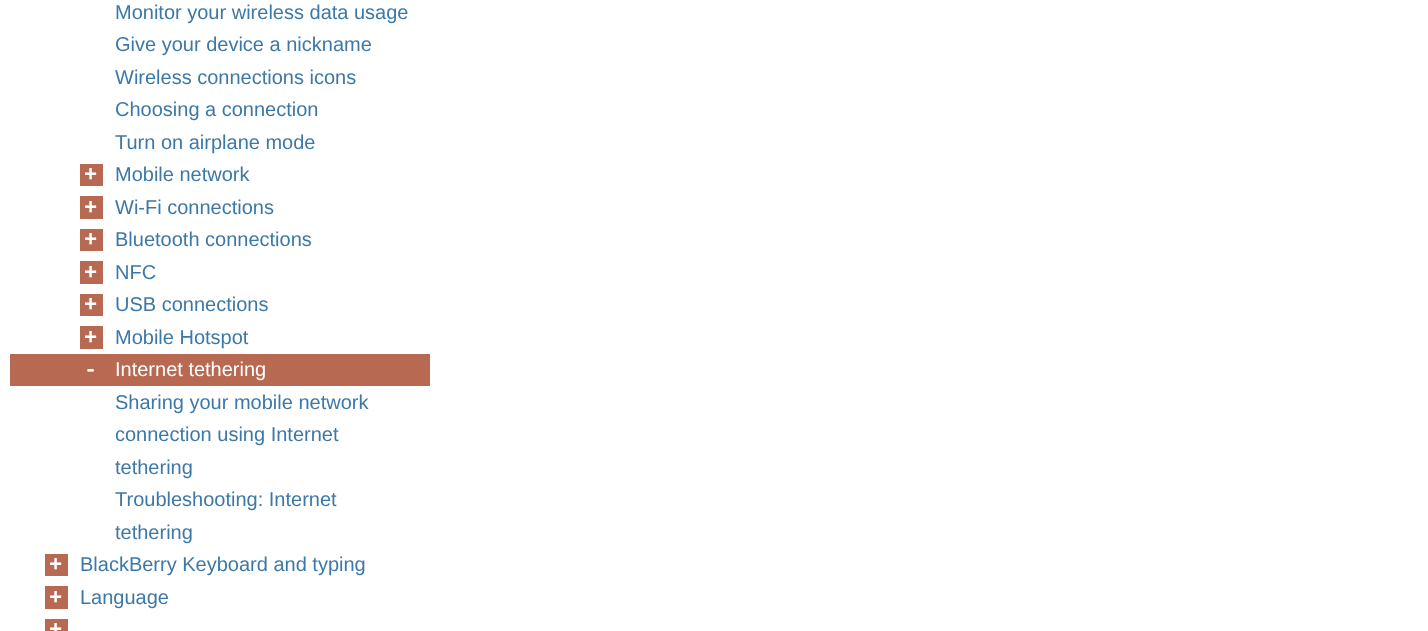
async function draw(canvas) {
  canvas.width = 1428;
  canvas.height = 631;
  const ctx = canvas.getContext('2d');
  ctx.miterLimit = 4;
  ctx.fontKerning = 'normal';
  function label(s, x, y, font, color) {
    ctx.font = font;
    ctx.fillStyle = color;
    ctx.fillText(s, x, y);
  }
  function rect(x, y, w, h, color) {
    ctx.fillStyle = color;
    ctx.fillRect(x, y, w, h);
  }

  rect(0, 0, 1428, 631, '#fff');
  label('Monitor your wireless data usage', 115, 19, '20px Liberation Sans', '#3c78a7');
  label('Give your device a nickname', 115, 51, '20px Liberation Sans', '#3c78a7');
  label('Wireless connections icons', 115, 84, '20px Liberation Sans', '#3c78a7');
  label('Choosing a connection', 115, 116, '20px Liberation Sans', '#3c78a7');
  label('Turn on airplane mode', 115, 149, '20px Liberation Sans', '#3c78a7');
  rect(80, 164, 23, 22, '#b76951');
  label('+', 84, 181, 'bold 22px Liberation Mono', '#fff');
  label('Mobile network', 115, 181, '20px Liberation Sans', '#3c78a7');
  rect(80, 196, 23, 23, '#b76951');
  label('+', 84, 214, 'bold 22px Liberation Mono', '#fff');
  label('Wi-Fi connections', 115, 214, '20px Liberation Sans', '#3c78a7');
  rect(80, 229, 23, 22, '#b76951');
  label('+', 84, 246, 'bold 22px Liberation Mono', '#fff');
  label('Bluetooth connections', 115, 246, '20px Liberation Sans', '#3c78a7');
  rect(80, 261, 23, 23, '#b76951');
  label('+', 84, 279, 'bold 22px Liberation Mono', '#fff');
  label('NFC', 115, 279, '20px Liberation Sans', '#3c78a7');
  rect(80, 294, 23, 22, '#b76951');
  label('+', 84, 311, 'bold 22px Liberation Mono', '#fff');
  label('USB connections', 115, 311, '20px Liberation Sans', '#3c78a7');
  rect(80, 326, 23, 23, '#b76951');
  label('+', 84, 344, 'bold 22px Liberation Mono', '#fff');
  label('Mobile Hotspot', 115, 344, '20px Liberation Sans', '#3c78a7');
  rect(10, 354, 420, 32, '#b76951');
  label('-', 84, 376, 'bold 22px Liberation Mono', '#fff');
  label('Internet tethering', 115, 376, '20px Liberation Sans', '#fff');
  label('Sharing your mobile network', 115, 409, '20px Liberation Sans', '#3c78a7');
  label('connection using Internet', 115, 441, '20px Liberation Sans', '#3c78a7');
  label('tethering', 115, 474, '20px Liberation Sans', '#3c78a7');
  label('Troubleshooting: Internet', 115, 506, '20px Liberation Sans', '#3c78a7');
  label('tethering', 115, 539, '20px Liberation Sans', '#3c78a7');
  rect(45, 554, 23, 22, '#b76951');
  label('+', 49, 571, 'bold 22px Liberation Mono', '#fff');
  label('BlackBerry Keyboard and typing', 80, 571, '20px Liberation Sans', '#3c78a7');
  rect(45, 586, 23, 23, '#b76951');
  label('+', 49, 604, 'bold 22px Liberation Mono', '#fff');
  label('Language', 80, 604, '20px Liberation Sans', '#3c78a7');
  rect(45, 619, 23, 12, '#b76951');
  label('+', 49, 636, 'bold 22px Liberation Mono', '#fff');
}

draw(document.querySelector('canvas'));
